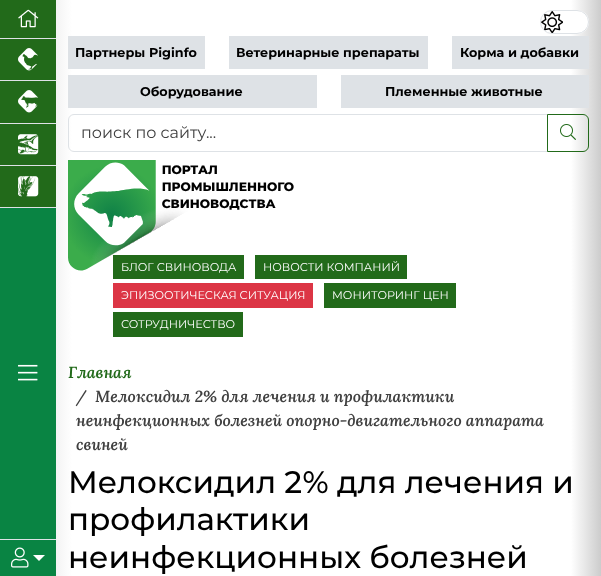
async function draw(canvas) {
  canvas.width = 601;
  canvas.height = 576;
  const ctx = canvas.getContext('2d');
  ctx.miterLimit = 4;
  ctx.fontKerning = 'normal';
  function label(s, x, y, font, color) {
    ctx.font = font;
    ctx.fillStyle = color;
    ctx.fillText(s, x, y);
  }
  function rect(x, y, w, h, color) {
    ctx.fillStyle = color;
    ctx.fillRect(x, y, w, h);
  }
  function roundedRect(x, y, w, h, r, color) {
    ctx.fillStyle = color;
    ctx.beginPath();
    ctx.roundRect(x, y, w, h, r);
    ctx.fill();
  }
  async function image(src, x, y, w, h) {
    const img = new Image();
    img.src = src;
    await img.decode();
    ctx.drawImage(img, x, y, w, h);
  }
  let gradient, path;

  rect(0, 0, 601, 576, '#fff');
  gradient = ctx.createLinearGradient(0, 288, 601, 288);
  gradient.addColorStop(0, '#ccc');
  gradient.addColorStop(0.12, '#fff');
  gradient.addColorStop(0.95, '#fff');
  gradient.addColorStop(1, '#ccc');
  ctx.fillStyle = gradient;
  ctx.fillRect(56, 0, 545, 576);
  rect(0, 208, 56, 368, '#098443');
  rect(0, 0, 56, 38, '#226a1a');
  rect(0, 38, 56, 1, '#dee2e6');
  await image('assets/img1.png', 18, 9, 21, 19);
  rect(0, 39, 56, 41, '#226a1a');
  rect(0, 80, 56, 1, '#dee2e6');
  await image('assets/img2.png', 18, 48, 20, 23);
  rect(0, 81, 56, 42, '#226a1a');
  rect(0, 123, 56, 1, '#dee2e6');
  await image('assets/img3.png', 18, 90, 21, 23);
  rect(0, 124, 56, 41, '#226a1a');
  rect(0, 165, 56, 1, '#dee2e6');
  await image('assets/img4.png', 18, 134, 21, 21);
  rect(0, 166, 56, 41, '#226a1a');
  rect(0, 207, 56, 1, '#dee2e6');
  await image('assets/img5.png', 18, 176, 21, 21);
  await image('assets/img6.png', 18, 364, 20, 17);
  rect(0, 539, 56, 1, '#dee2e6');
  await image('assets/img7.png', 11, 547, 18, 21);
  ctx.fillStyle = '#fff';
  path = new Path2D('M33 555H45L39 561Z');
  ctx.fill(path);
  roundedRect(540, 10, 49, 24, 12, '#fff');
  await image('assets/img8.png', 541, 11, 22, 22);
  ctx.beginPath();
  ctx.roundRect(540.5, 10.5, 48, 23, 11.5);
  ctx.strokeStyle = '#dee2e6';
  ctx.stroke();
  rect(68, 36, 137, 33, '#dee2e6');
  label('Партнеры Piginfo', 75, 57, 'bold 12.75px Montserrat', '#000');
  rect(229, 36, 199, 33, '#dee2e6');
  label('Ветеринарные препараты', 236, 57, 'bold 12.75px Montserrat', '#000');
  rect(452, 36, 137, 33, '#dee2e6');
  label('Корма и добавки', 460, 57, 'bold 12.75px Montserrat', '#000');
  rect(68, 75, 249, 33, '#dee2e6');
  label('Оборудование', 140, 96, 'bold 12.75px Montserrat', '#000');
  rect(341, 75, 248, 33, '#dee2e6');
  label('Племенные животные', 385, 96, 'bold 12.75px Montserrat', '#000');
  ctx.beginPath();
  ctx.roundRect(68.5, 114.5, 479, 37, [5.5, 0, 0, 5.5]);
  ctx.stroke();
  label('поиск по сайту...', 81, 138, '16px Montserrat', '#404040');
  ctx.beginPath();
  ctx.roundRect(547.5, 114.5, 41, 37, [0, 5.5, 5.5, 0]);
  ctx.strokeStyle = '#226a1a';
  ctx.stroke();
  await image('assets/img9.png', 560, 124, 16, 16);
  rect(113, 255, 131, 24, '#226a1a');
  label('БЛОГ СВИНОВОДА', 121, 271, '11.25px Montserrat', '#fff');
  rect(255, 255, 152, 24, '#226a1a');
  label('НОВОСТИ КОМПАНИЙ', 263, 271, '11.25px Montserrat', '#fff');
  await image('assets/img10.png', 68, 160, 226, 111);
  rect(113, 283, 200, 25, '#dc3545');
  label('ЭПИЗООТИЧЕСКАЯ СИТУАЦИЯ', 121, 299, '11.25px Montserrat', '#fff');
  rect(324, 283, 132, 25, '#226a1a');
  label('МОНИТОРИНГ ЦЕН', 332, 299, '11.25px Montserrat', '#fff');
  rect(113, 312, 130, 25, '#226a1a');
  label('СОТРУДНИЧЕСТВО', 121, 328, '11.25px Montserrat', '#fff');
  label('Главная', 68, 378, 'italic 600 16px Lora', '#226a1a');
  label('/', 76, 402, 'italic 600 16px Lora', '#404040');
  label('Мелоксидил 2% для лечения и профилактики', 95, 402, 'italic 600 16px Lora', '#404040');
  label('неинфекционных болезней опорно-двигательного аппарата', 76, 426, 'italic 600 16px Lora', '#404040');
  label('свиней', 76, 450, 'italic 600 16px Lora', '#404040');
  label('Мелоксидил 2% для лечения и', 68, 493, '500 31px Montserrat', '#000');
  label('профилактики', 68, 530, '500 31px Montserrat', '#000');
  label('неинфекционных болезней', 68, 568, '500 31px Montserrat', '#000');
}

draw(document.querySelector('canvas'));
